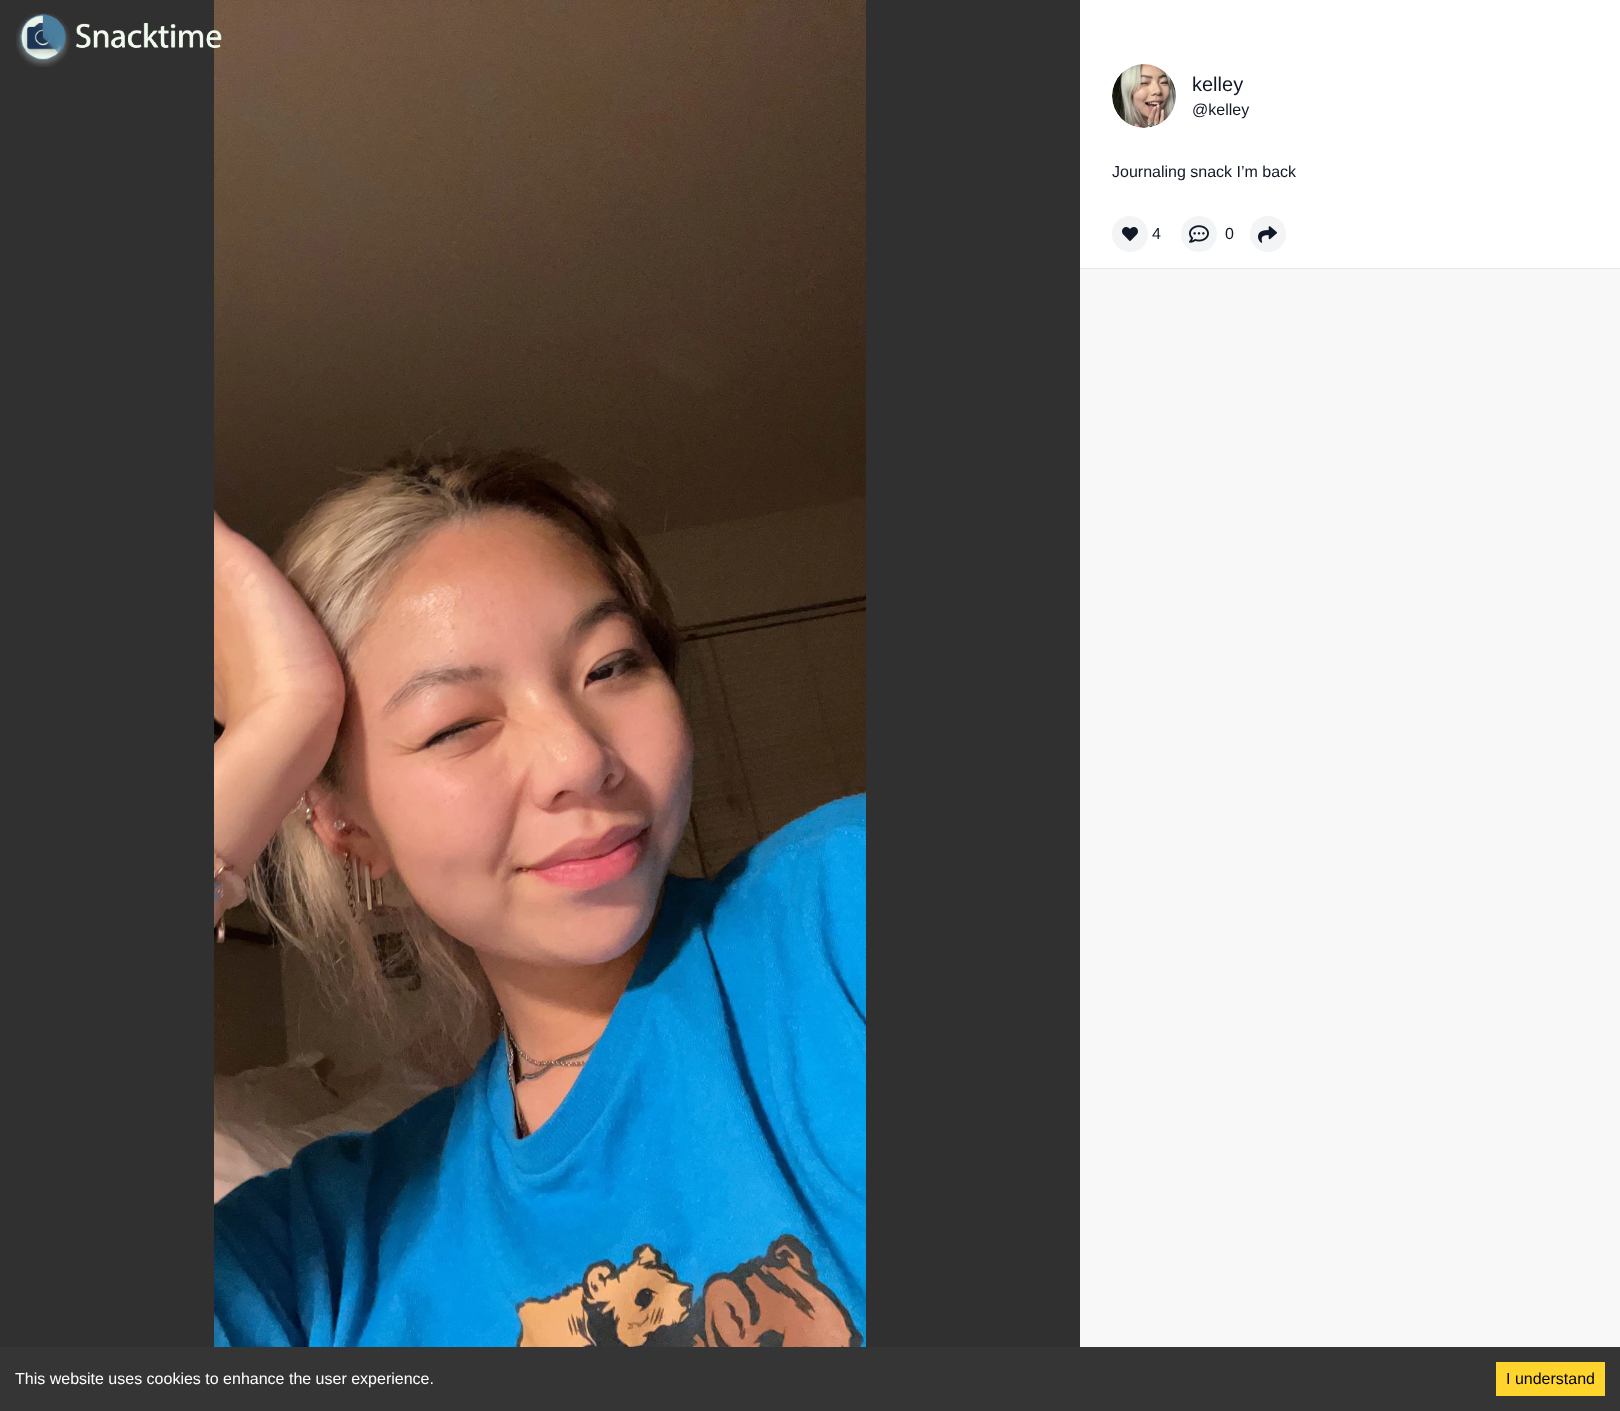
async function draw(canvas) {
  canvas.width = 1620;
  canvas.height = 1411;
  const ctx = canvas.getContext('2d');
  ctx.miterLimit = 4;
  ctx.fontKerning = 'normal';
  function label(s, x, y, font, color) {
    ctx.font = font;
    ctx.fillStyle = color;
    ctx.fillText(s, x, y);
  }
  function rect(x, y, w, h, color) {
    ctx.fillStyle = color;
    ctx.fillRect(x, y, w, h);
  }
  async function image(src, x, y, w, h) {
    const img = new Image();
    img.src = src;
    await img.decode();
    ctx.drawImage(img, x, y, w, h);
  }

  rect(0, 0, 1620, 1411, '#fff');
  rect(0, 0, 1080, 1347, '#303030');
  await image('assets/img3.png', 214, 0, 652, 1347);
  await image('assets/img1.png', 16, 13, 206, 54);
  await image('assets/img2.png', 16, 13, 206, 54);
  await image('assets/img4.png', 1112, 64, 64, 64);
  label('kelley', 1192, 91, '20px Liberation Sans', '#111827');
  label('@kelley', 1192, 115, '16px Liberation Sans', '#111827');
  label('Journaling snack I’m back', 1112, 177, '16px Liberation Sans', '#111827');
  ctx.fillStyle = '#f3f4f6';
  ctx.beginPath();
  ctx.arc(1130, 234, 18, 0, 2 * Math.PI);
  ctx.fill();
  await image('assets/img5.png', 1122, 227, 16, 14);
  label('4', 1152, 239, '16px Liberation Sans', '#111827');
  ctx.fillStyle = '#f3f4f6';
  ctx.beginPath();
  ctx.arc(1199, 234, 18, 0, 2 * Math.PI);
  ctx.fill();
  await image('assets/img6.png', 1189, 225, 20, 18);
  label('0', 1225, 239, '16px Liberation Sans', '#111827');
  ctx.fillStyle = '#f3f4f6';
  ctx.beginPath();
  ctx.arc(1268, 234, 18, 0, 2 * Math.PI);
  ctx.fill();
  await image('assets/img7.png', 1258, 226, 19, 17);
  rect(1080, 269, 540, 1078, '#f8f8f8');
  rect(1080, 268, 540, 1, '#e5e7eb');
  rect(0, 1347, 1620, 64, '#353535');
  label('This website uses cookies to enhance the user experience.', 15, 1384, '16px Liberation Sans', '#fff');
  rect(1496, 1362, 109, 34, '#ffd42d');
  label('I understand', 1506, 1384, '16px Liberation Sans', '#000');
}

draw(document.querySelector('canvas'));
